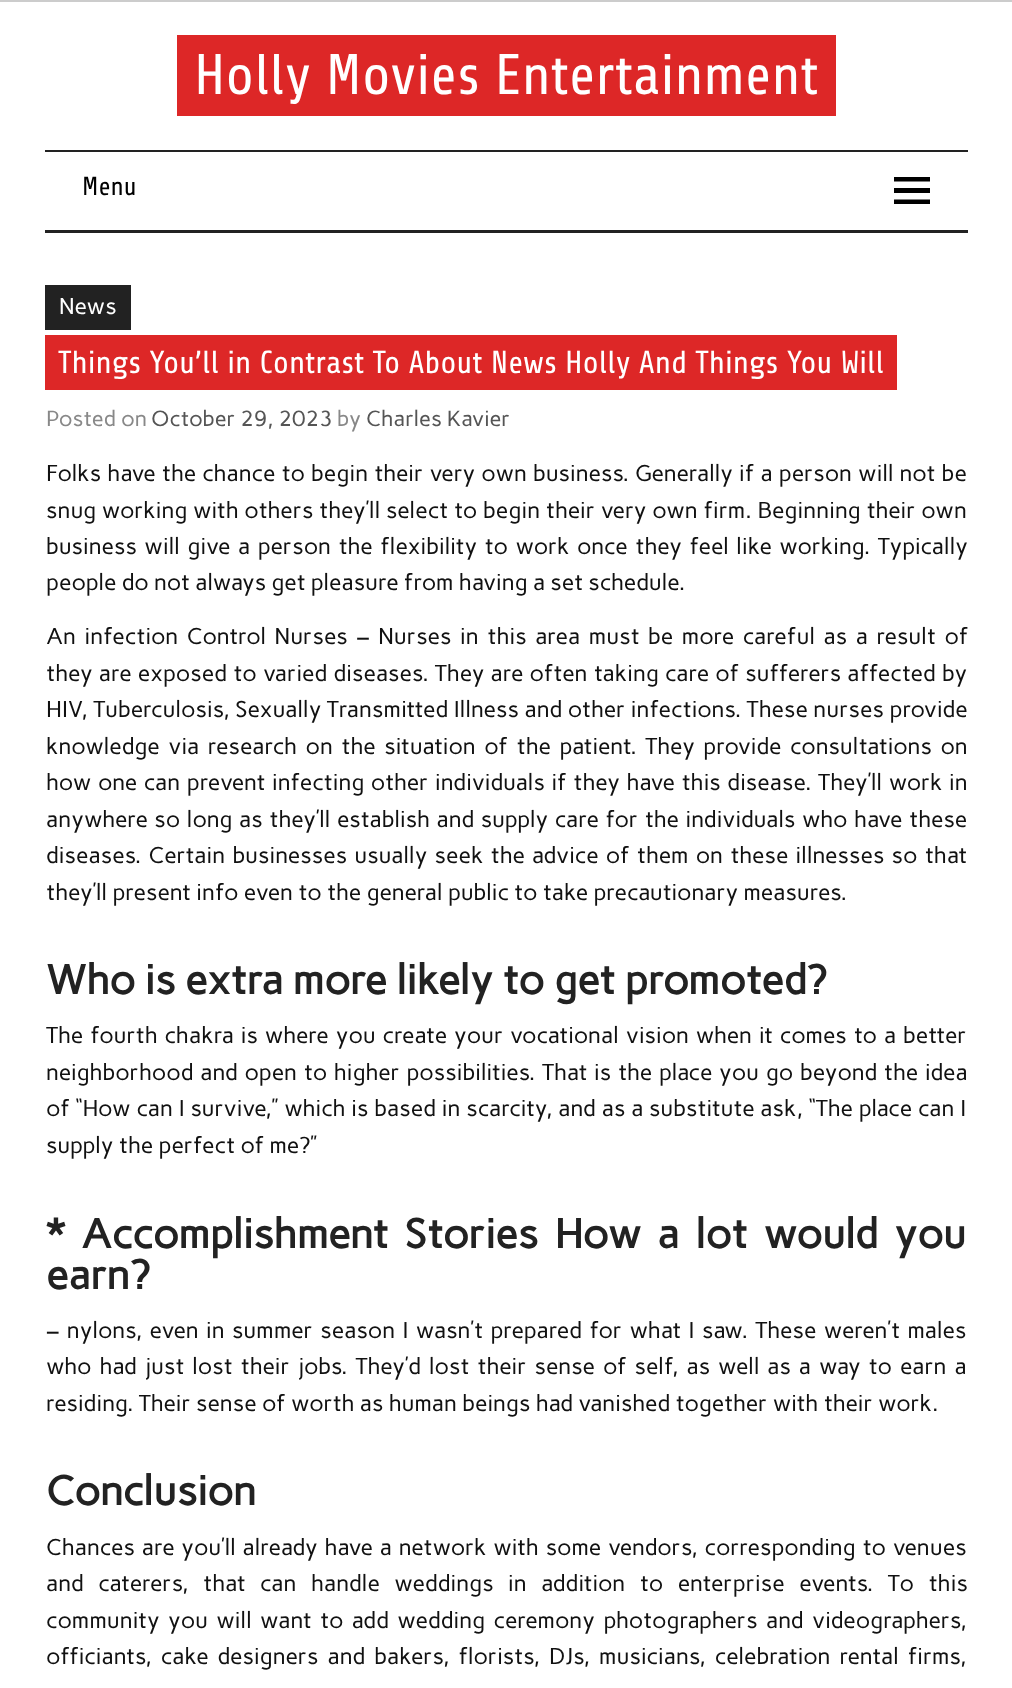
async function draw(canvas) {
  canvas.width = 1012;
  canvas.height = 1688;
  const ctx = canvas.getContext('2d');
  ctx.miterLimit = 4;
  ctx.fontKerning = 'normal';
  function label(s, x, y, font, color) {
    ctx.font = font;
    ctx.fillStyle = color;
    ctx.fillText(s, x, y);
  }
  function rect(x, y, w, h, color) {
    ctx.fillStyle = color;
    ctx.fillRect(x, y, w, h);
  }
  let path;

  rect(0, 0, 1012, 1688, '#fff');
  rect(0, 0, 1012, 2, '#ccc');
  rect(177, 35, 659, 81, '#dd2727');
  label('Holly Movies Entertainment', 194, 94, '57px Share', '#fff');
  rect(45, 150, 923, 2, '#222');
  rect(45, 230, 923, 3, '#222');
  label('Menu', 82, 195, '26px Share', '#000');
  path = new Path2D('M894 204V199.5H930V204ZM894 177H930V181.5H894ZM894 193V188H930V193Z');
  ctx.fill(path);
  rect(45, 285, 86, 45, '#222');
  label('News', 59, 314, '22.8px Carme', '#fff');
  rect(45, 335, 852, 55, '#dd2727');
  label('Things You’ll in Contrast To About News Holly And Things You Will', 58, 373, '31.9px Share', '#fff');
  label('Posted on', 46, 426, '21.75px Carme', '#888');
  label('October 29, 2023', 151, 426, '21.75px Carme', '#555');
  label('by', 337, 426, '21.75px Carme', '#888');
  label('Charles Kavier', 366, 426, '21.75px Carme', '#555');
  ctx.wordSpacing = '0.8px';
  label('Folks have the chance to begin their very own business. Generally if a person will not be', 46, 481, '22.8px Carme', '#111');
  ctx.wordSpacing = '0.4px';
  label('snug working with others they’ll select to begin their very own firm. Beginning their own', 46, 518, '22.8px Carme', '#111');
  ctx.wordSpacing = '2.25px';
  label('business will give a person the flexibility to work once they feel like working. Typically', 46, 554, '22.8px Carme', '#111');
  ctx.wordSpacing = '0px';
  label('people do not always get pleasure from having a set schedule.', 46, 590, '22.8px Carme', '#111');
  ctx.wordSpacing = '3.25px';
  label('An infection Control Nurses – Nurses in this area must be more careful as a result of', 46, 644, '22.8px Carme', '#111');
  ctx.wordSpacing = '0.9px';
  label('they are exposed to varied diseases. They are often taking care of sufferers affected by', 46, 681, '22.8px Carme', '#111');
  ctx.wordSpacing = '0.25px';
  label('HIV, Tuberculosis, Sexually Transmitted Illness and other infections. These nurses provide', 46, 717, '22.8px Carme', '#111');
  ctx.wordSpacing = '3.25px';
  label('knowledge via research on the situation of the patient. They provide consultations on', 46, 754, '22.8px Carme', '#111');
  ctx.wordSpacing = '1.25px';
  label('how one can prevent infecting other individuals if they have this disease. They’ll work in', 46, 790, '22.8px Carme', '#111');
  label('anywhere so long as they’ll establish and supply care for the individuals who have these', 46, 827, '22.8px Carme', '#111');
  ctx.wordSpacing = '1.9px';
  label('diseases. Certain businesses usually seek the advice of them on these illnesses so that', 46, 863, '22.8px Carme', '#111');
  ctx.wordSpacing = '0px';
  label('they’ll present info even to the general public to take precautionary measures.', 46, 900, '22.8px Carme', '#111');
  label('Who is extra more likely to get promoted?', 46, 994, 'bold 41px Carme', '#222');
  ctx.wordSpacing = '1.6px';
  label('The fourth chakra is where you create your vocational vision when it comes to a better', 46, 1043, '22.8px Carme', '#111');
  ctx.wordSpacing = '1.4px';
  label('neighborhood and open to higher possibilities. That is the place you go beyond the idea', 46, 1080, '22.8px Carme', '#111');
  ctx.wordSpacing = '0.5px';
  label('of “How can I survive,” which is based in scarcity, and as a substitute ask, “The place can I', 46, 1116, '22.8px Carme', '#111');
  ctx.wordSpacing = '0px';
  label('supply the perfect of me?”', 46, 1153, '22.8px Carme', '#111');
  ctx.wordSpacing = '6.75px';
  label('* Accomplishment Stories How a lot would you', 46, 1248, 'bold 41px Carme', '#222');
  ctx.wordSpacing = '0px';
  label('earn?', 46, 1289, 'bold 41px Carme', '#222');
  ctx.wordSpacing = '2.1px';
  label('– nylons, even in summer season I wasn’t prepared for what I saw. These weren’t males', 46, 1338, '22.8px Carme', '#111');
  ctx.wordSpacing = '2.6px';
  label('who had just lost their jobs. They’d lost their sense of self, as well as a way to earn a', 46, 1374, '22.8px Carme', '#111');
  ctx.wordSpacing = '0px';
  label('residing. Their sense of worth as human beings had vanished together with their work.', 46, 1411, '22.8px Carme', '#111');
  label('Conclusion', 46, 1505, 'bold 41px Carme', '#222');
  ctx.wordSpacing = '1.5px';
  label('Chances are you’ll already have a network with some vendors, corresponding to venues', 46, 1555, '22.8px Carme', '#111');
  ctx.wordSpacing = '9.25px';
  label('and caterers, that can handle weddings in addition to enterprise events. To this', 46, 1591, '22.8px Carme', '#111');
  ctx.wordSpacing = '3.1px';
  label('community you will want to add wedding ceremony photographers and videographers,', 46, 1628, '22.8px Carme', '#111');
  ctx.wordSpacing = '3.75px';
  label('officiants, cake designers and bakers, florists, DJs, musicians, celebration rental firms,', 46, 1664, '22.8px Carme', '#111');
}

draw(document.querySelector('canvas'));
